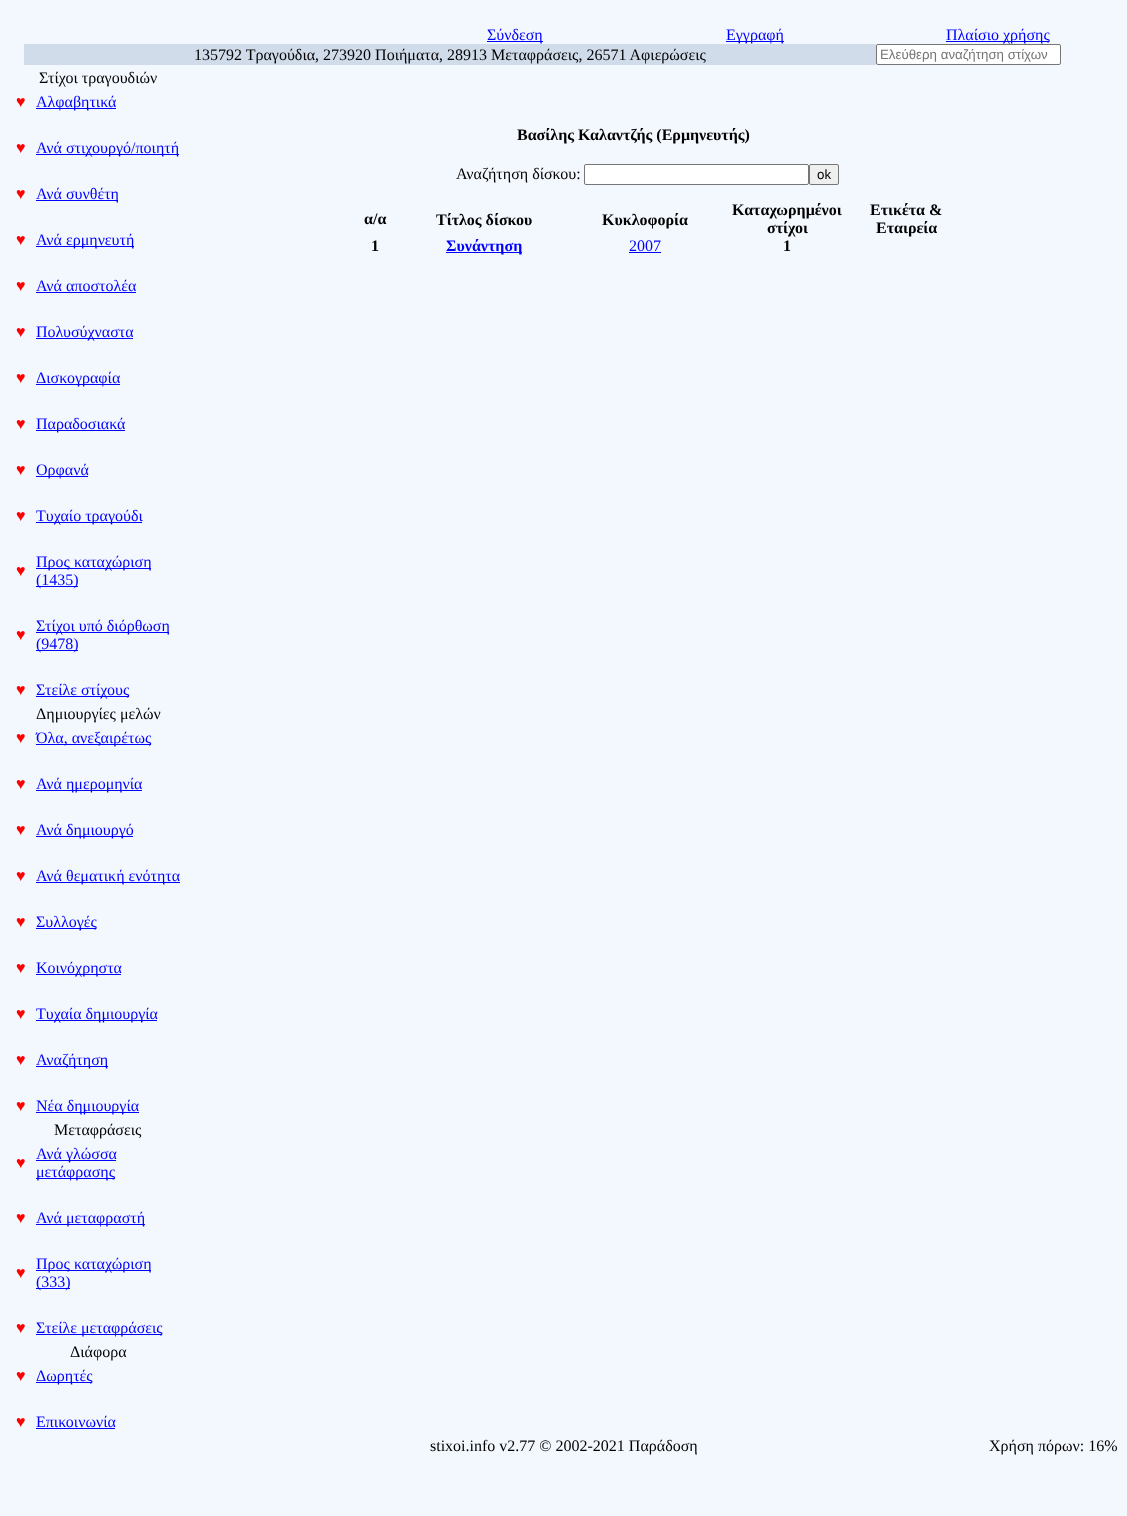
async function draw(canvas) {
  canvas.width = 1127;
  canvas.height = 1516;
  const ctx = canvas.getContext('2d');
  ctx.miterLimit = 4;
  ctx.fontKerning = 'normal';
  function label(s, x, y, font, color) {
    ctx.font = font;
    ctx.fillStyle = color;
    ctx.fillText(s, x, y);
  }
  function rect(x, y, w, h, color) {
    ctx.fillStyle = color;
    ctx.fillRect(x, y, w, h);
  }

  rect(0, 0, 1127, 1516, '#f3f7fe');
  rect(487, 41, 56, 1, '#00f');
  label('Σύνδεση', 487, 40, '16px Liberation Serif', '#00f');
  rect(726, 41, 58, 1, '#00f');
  label('Εγγραφή', 726, 40, '16px Liberation Serif', '#00f');
  rect(946, 41, 103, 1, '#00f');
  label('Πλαίσιο χρήσης', 946, 40, '16px Liberation Serif', '#00f');
  rect(24, 44, 852, 21, '#d1dceb');
  label('135792 Τραγούδια, 273920 Ποιήματα, 28913 Μεταφράσεις, 26571 Αφιερώσεις', 194, 60, '16px Liberation Serif', '#000');
  ctx.fillStyle = '#fff';
  ctx.beginPath();
  ctx.roundRect(876.5, 44.5, 184, 20, 1.5);
  ctx.fill();
  ctx.strokeStyle = '#767676';
  ctx.stroke();
  label('Ελεύθερη αναζήτηση στίχων', 880, 59, '13.3px Liberation Sans', '#757575');
  label('Στίχοι τραγουδιών', 39, 83, '16px Liberation Serif', '#000');
  label('♥', 16, 107, 'bold 16px Liberation Serif', '#f00');
  rect(36, 108, 80, 1, '#00f');
  label('Αλφαβητικά', 36, 107, '16px Liberation Serif', '#00f');
  label('♥', 16, 153, 'bold 16px Liberation Serif', '#f00');
  rect(36, 154, 143, 1, '#00f');
  label('Ανά στιχουργό/ποιητή', 36, 153, '16px Liberation Serif', '#00f');
  label('♥', 16, 199, 'bold 16px Liberation Serif', '#f00');
  rect(36, 200, 82, 1, '#00f');
  label('Ανά συνθέτη', 36, 199, '16px Liberation Serif', '#00f');
  label('♥', 16, 245, 'bold 16px Liberation Serif', '#f00');
  rect(36, 246, 98, 1, '#00f');
  label('Ανά ερμηνευτή', 36, 245, '16px Liberation Serif', '#00f');
  label('♥', 16, 291, 'bold 16px Liberation Serif', '#f00');
  label('Ανά αποστολέα', 36, 291, '16px Liberation Serif', '#00f');
  rect(36, 292, 100, 1, '#00f');
  label('♥', 16, 337, 'bold 16px Liberation Serif', '#f00');
  rect(36, 338, 97, 1, '#00f');
  label('Πολυσύχναστα', 36, 337, '16px Liberation Serif', '#00f');
  label('♥', 16, 383, 'bold 16px Liberation Serif', '#f00');
  rect(36, 384, 84, 1, '#00f');
  label('Δισκογραφία', 36, 383, '16px Liberation Serif', '#00f');
  label('♥', 16, 429, 'bold 16px Liberation Serif', '#f00');
  rect(36, 430, 89, 1, '#00f');
  label('Παραδοσιακά', 36, 429, '16px Liberation Serif', '#00f');
  label('♥', 16, 475, 'bold 16px Liberation Serif', '#f00');
  rect(36, 476, 52, 1, '#00f');
  label('Ορφανά', 36, 475, '16px Liberation Serif', '#00f');
  label('♥', 16, 521, 'bold 16px Liberation Serif', '#f00');
  rect(36, 522, 106, 1, '#00f');
  label('Τυχαίο τραγούδι', 36, 521, '16px Liberation Serif', '#00f');
  label('♥', 16, 576, 'bold 16px Liberation Serif', '#f00');
  rect(36, 568, 115, 1, '#00f');
  label('Προς καταχώριση', 36, 567, '16px Liberation Serif', '#00f');
  rect(36, 586, 42, 1, '#00f');
  label('(1435)', 36, 585, '16px Liberation Serif', '#00f');
  label('♥', 16, 640, 'bold 16px Liberation Serif', '#f00');
  rect(36, 632, 133, 1, '#00f');
  label('Στίχοι υπό διόρθωση', 36, 631, '16px Liberation Serif', '#00f');
  rect(36, 650, 42, 1, '#00f');
  label('(9478)', 36, 649, '16px Liberation Serif', '#00f');
  label('♥', 16, 695, 'bold 16px Liberation Serif', '#f00');
  rect(36, 696, 93, 1, '#00f');
  label('Στείλε στίχους', 36, 695, '16px Liberation Serif', '#00f');
  label('Δημιουργίες μελών', 36, 719, '16px Liberation Serif', '#000');
  label('♥', 16, 743, 'bold 16px Liberation Serif', '#f00');
  rect(36, 744, 115, 1, '#00f');
  label('Όλα, ανεξαιρέτως', 36, 743, '16px Liberation Serif', '#00f');
  label('♥', 16, 789, 'bold 16px Liberation Serif', '#f00');
  rect(36, 790, 106, 1, '#00f');
  label('Ανά ημερομηνία', 36, 789, '16px Liberation Serif', '#00f');
  label('♥', 16, 835, 'bold 16px Liberation Serif', '#f00');
  rect(36, 836, 97, 1, '#00f');
  label('Ανά δημιουργό', 36, 835, '16px Liberation Serif', '#00f');
  label('♥', 16, 881, 'bold 16px Liberation Serif', '#f00');
  rect(36, 882, 144, 1, '#00f');
  label('Ανά θεματική ενότητα', 36, 881, '16px Liberation Serif', '#00f');
  label('♥', 16, 927, 'bold 16px Liberation Serif', '#f00');
  rect(36, 928, 60, 1, '#00f');
  label('Συλλογές', 36, 927, '16px Liberation Serif', '#00f');
  label('♥', 16, 973, 'bold 16px Liberation Serif', '#f00');
  rect(36, 974, 85, 1, '#00f');
  label('Κοινόχρηστα', 36, 973, '16px Liberation Serif', '#00f');
  label('♥', 16, 1019, 'bold 16px Liberation Serif', '#f00');
  rect(36, 1020, 121, 1, '#00f');
  label('Τυχαία δημιουργία', 36, 1019, '16px Liberation Serif', '#00f');
  label('♥', 16, 1065, 'bold 16px Liberation Serif', '#f00');
  rect(36, 1066, 72, 1, '#00f');
  label('Αναζήτηση', 36, 1065, '16px Liberation Serif', '#00f');
  label('♥', 16, 1111, 'bold 16px Liberation Serif', '#f00');
  rect(36, 1112, 103, 1, '#00f');
  label('Νέα δημιουργία', 36, 1111, '16px Liberation Serif', '#00f');
  label('Μεταφράσεις', 54, 1135, '16px Liberation Serif', '#000');
  label('♥', 16, 1168, 'bold 16px Liberation Serif', '#f00');
  rect(36, 1160, 80, 1, '#00f');
  label('Ανά γλώσσα', 36, 1159, '16px Liberation Serif', '#00f');
  rect(36, 1178, 79, 1, '#00f');
  label('μετάφρασης', 36, 1177, '16px Liberation Serif', '#00f');
  label('♥', 16, 1223, 'bold 16px Liberation Serif', '#f00');
  rect(36, 1224, 109, 1, '#00f');
  label('Ανά μεταφραστή', 36, 1223, '16px Liberation Serif', '#00f');
  label('♥', 16, 1278, 'bold 16px Liberation Serif', '#f00');
  rect(36, 1270, 115, 1, '#00f');
  label('Προς καταχώριση', 36, 1269, '16px Liberation Serif', '#00f');
  rect(36, 1288, 34, 1, '#00f');
  label('(333)', 36, 1287, '16px Liberation Serif', '#00f');
  label('♥', 16, 1333, 'bold 16px Liberation Serif', '#f00');
  rect(36, 1334, 126, 1, '#00f');
  label('Στείλε μεταφράσεις', 36, 1333, '16px Liberation Serif', '#00f');
  label('Διάφορα', 70, 1357, '16px Liberation Serif', '#000');
  label('♥', 16, 1381, 'bold 16px Liberation Serif', '#f00');
  rect(36, 1382, 56, 1, '#00f');
  label('Δωρητές', 36, 1381, '16px Liberation Serif', '#00f');
  label('♥', 16, 1427, 'bold 16px Liberation Serif', '#f00');
  label('Επικοινωνία', 36, 1427, '16px Liberation Serif', '#00f');
  rect(36, 1428, 79, 1, '#00f');
  label('Βασίλης Καλαντζής (Ερμηνευτής)', 517, 140, 'bold 16px Liberation Serif', '#000');
  label('Αναζήτηση δίσκου:', 456, 179, '16px Liberation Serif', '#000');
  ctx.fillStyle = '#fff';
  ctx.beginPath();
  ctx.roundRect(584.5, 164.5, 224, 20, 1.5);
  ctx.fill();
  ctx.stroke();
  ctx.fillStyle = '#efefef';
  ctx.beginPath();
  ctx.roundRect(809.5, 164.5, 29, 20, 1.5);
  ctx.fill();
  ctx.stroke();
  label('ok', 817, 179, '13.3px Liberation Sans', '#000');
  label('α/α', 364, 224, 'bold 16px Liberation Serif', '#000');
  label('Τίτλος δίσκου', 436, 225, 'bold 16px Liberation Serif', '#000');
  label('Κυκλοφορία', 602, 225, 'bold 16px Liberation Serif', '#000');
  label('Καταχωρημένοι', 732, 215, 'bold 16px Liberation Serif', '#000');
  label('στίχοι', 767, 233, 'bold 16px Liberation Serif', '#000');
  label('Ετικέτα &', 870, 215, 'bold 16px Liberation Serif', '#000');
  label('Εταιρεία', 876, 233, 'bold 16px Liberation Serif', '#000');
  label('1', 371, 251, 'bold 16px Liberation Serif', '#000');
  rect(446, 252, 76, 1, '#00f');
  label('Συνάντηση', 446, 251, 'bold 16px Liberation Serif', '#00f');
  label('2007', 629, 251, '16px Liberation Serif', '#00f');
  rect(629, 252, 32, 1, '#00f');
  label('1', 783, 251, 'bold 16px Liberation Serif', '#000');
  label('stixoi.info v2.77 © 2002-2021 Παράδοση', 430, 1451, '16px Liberation Serif', '#000');
  label('Χρήση πόρων: 16%', 989, 1451, '16px Liberation Serif', '#000');
}

draw(document.querySelector('canvas'));
